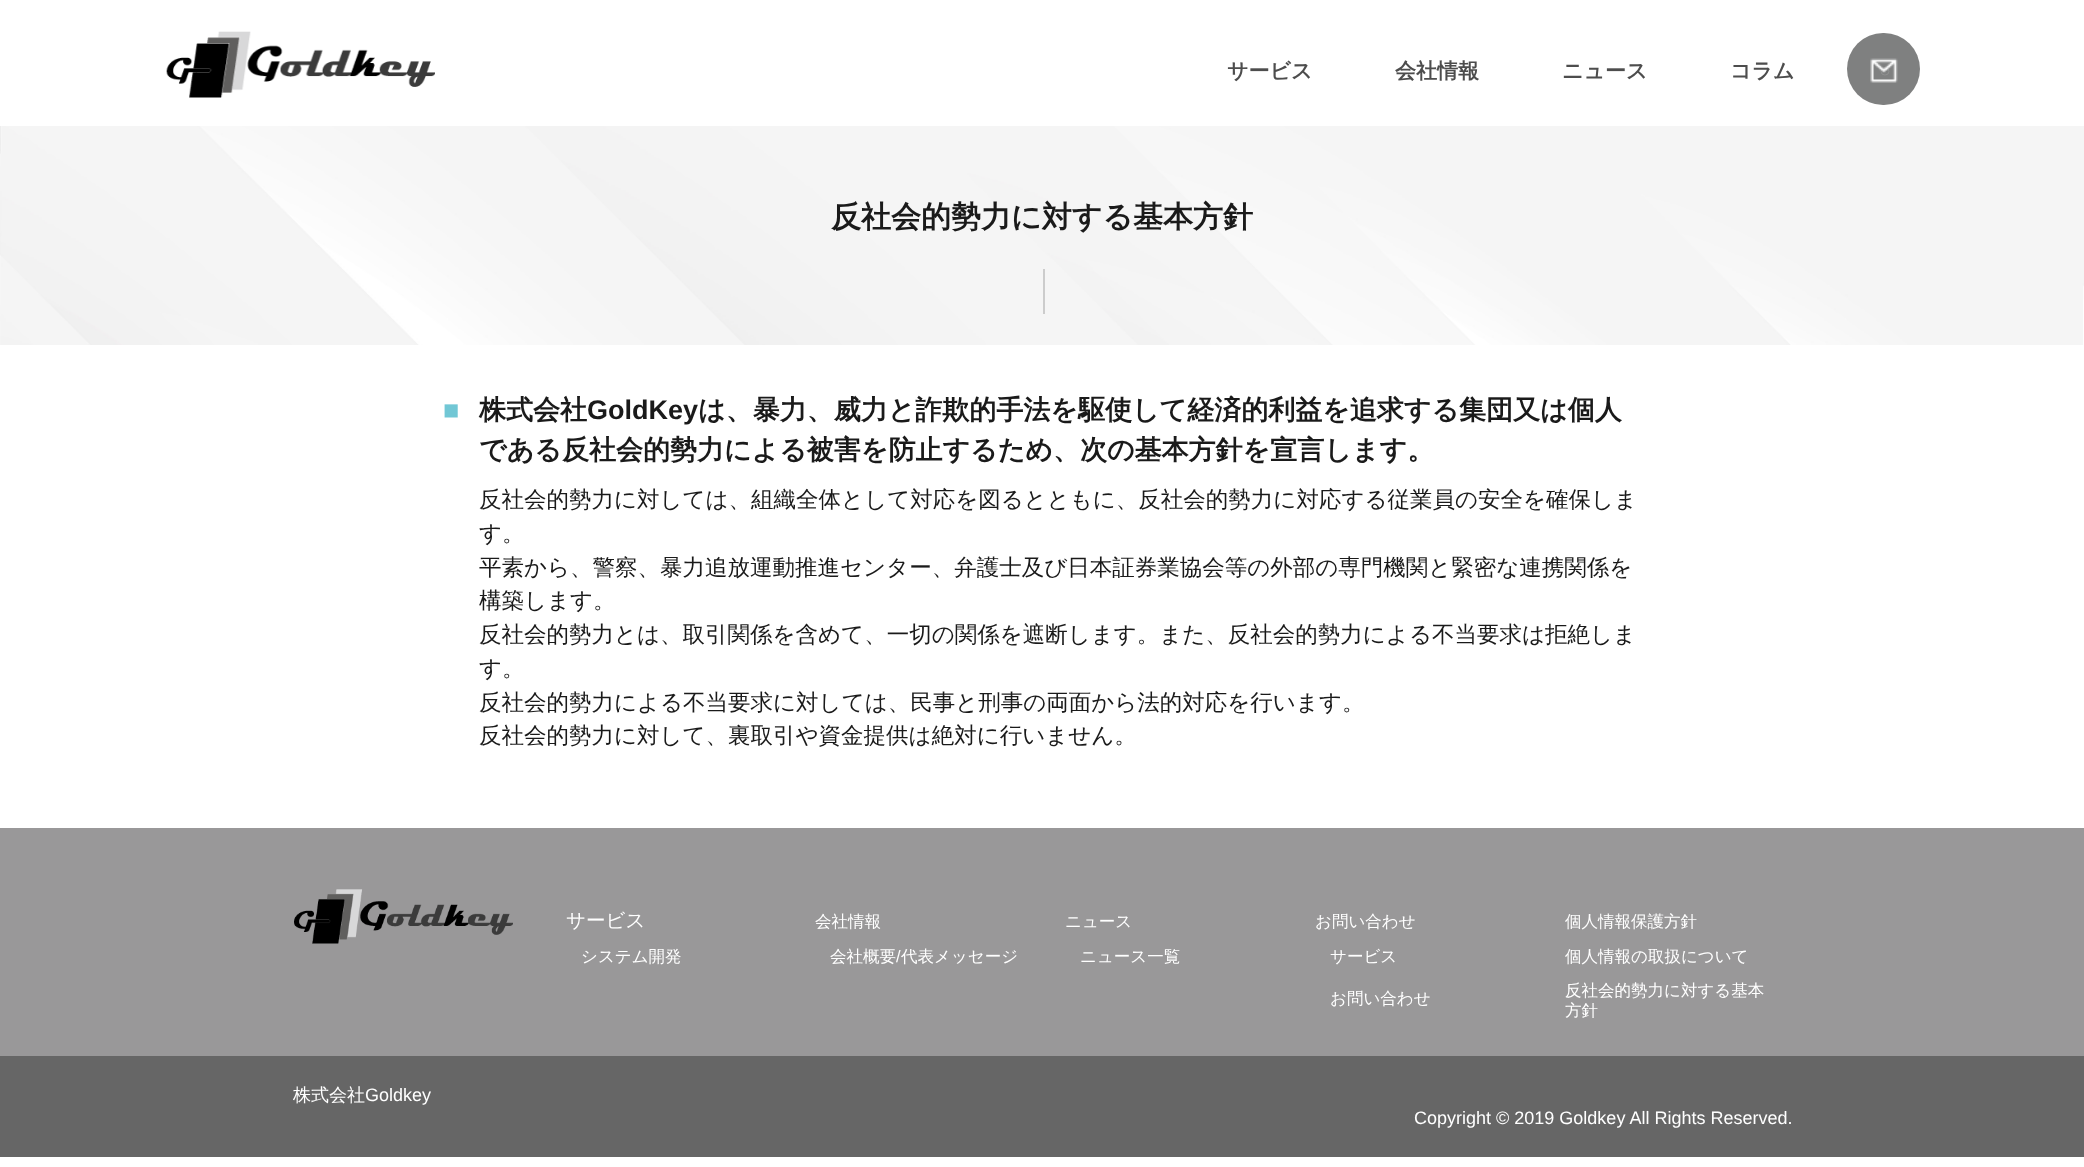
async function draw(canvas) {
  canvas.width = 2084;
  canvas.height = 1167;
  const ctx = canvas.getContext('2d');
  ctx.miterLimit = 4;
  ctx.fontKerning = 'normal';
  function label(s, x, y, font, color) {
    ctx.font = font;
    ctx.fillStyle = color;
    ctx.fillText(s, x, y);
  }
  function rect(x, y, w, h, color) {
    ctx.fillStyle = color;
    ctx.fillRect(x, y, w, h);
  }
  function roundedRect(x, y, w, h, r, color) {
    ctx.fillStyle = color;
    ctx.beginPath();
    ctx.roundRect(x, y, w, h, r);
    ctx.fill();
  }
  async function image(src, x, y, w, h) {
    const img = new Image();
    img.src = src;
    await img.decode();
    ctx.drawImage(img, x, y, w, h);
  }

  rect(0, 0, 2084, 1167, '#fff');
  await image('assets/img1.png', 166, 31, 269, 67);
  label('サービス', 1227, 78, 'bold 21px WenQuanYi Zen Hei', '#4d4d4d');
  label('会社情報', 1395, 78, 'bold 21px WenQuanYi Zen Hei', '#4d4d4d');
  label('ニュース', 1562, 78, 'bold 21px WenQuanYi Zen Hei', '#4d4d4d');
  label('コラム', 1730, 78, 'bold 21px WenQuanYi Zen Hei', '#4d4d4d');
  roundedRect(1847, 33, 73, 72, 36, '#7f8080');
  ctx.beginPath();
  ctx.roundRect(1881.1, 68.1, 7.8, 6.8, 3.4);
  ctx.strokeStyle = '#ccc';
  ctx.lineWidth = 0.2;
  ctx.stroke();
  await image('assets/img2.png', 1870, 58, 28, 25);
  await image('assets/img3.png', 0, 126, 2084, 219);
  label('反社会的勢力に対する基本方針', 831, 227, 'bold 30px WenQuanYi Zen Hei', '#1a1a1a');
  rect(1043, 269, 2, 45, '#ccc');
  label('■', 443, 419, 'bold 27px Liberation Sans', '#71c7d5');
  label('株式会社', 479, 419, 'bold 27px WenQuanYi Zen Hei', '#1a1a1a');
  label('GoldKey', 587, 419, 'bold 27px Liberation Sans', '#1a1a1a');
  label('は、暴力、威力と詐欺的手法を駆使して経済的利益を追求する集団又は個人', 698, 419, 'bold 27px WenQuanYi Zen Hei', '#1a1a1a');
  label('である反社会的勢力による被害を防止するため、次の基本方針を宣言します。', 479, 459, 'bold 27px WenQuanYi Zen Hei', '#1a1a1a');
  label('反社会的勢力に対しては、組織全体として対応を図るとともに、反社会的勢力に対応する従業員の安全を確保しま', 479, 507, '500 22.5px WenQuanYi Zen Hei', '#1a1a1a');
  label('す。', 479, 541, '500 22.5px WenQuanYi Zen Hei', '#1a1a1a');
  label('平素から、警察、暴力追放運動推進センター、弁護士及び日本証券業協会等の外部の専門機関と緊密な連携関係を', 479, 575, '500 22.5px WenQuanYi Zen Hei', '#1a1a1a');
  label('構築します。', 479, 608, '500 22.5px WenQuanYi Zen Hei', '#1a1a1a');
  label('反社会的勢力とは、取引関係を含めて、一切の関係を遮断します。また、反社会的勢力による不当要求は拒絶しま', 479, 642, '500 22.5px WenQuanYi Zen Hei', '#1a1a1a');
  label('す。', 479, 676, '500 22.5px WenQuanYi Zen Hei', '#1a1a1a');
  label('反社会的勢力による不当要求に対しては、民事と刑事の両面から法的対応を行います。', 479, 710, '500 22.5px WenQuanYi Zen Hei', '#1a1a1a');
  label('反社会的勢力に対して、裏取引や資金提供は絶対に行いません。', 479, 743, '500 22.5px WenQuanYi Zen Hei', '#1a1a1a');
  rect(0, 828, 2084, 228, '#999899');
  await image('assets/img4.png', 294, 889, 219, 55);
  label('サービス', 566, 927, '500 19.5px WenQuanYi Zen Hei', '#fff');
  label('システム開発', 581, 962, '500 16.5px WenQuanYi Zen Hei', '#fff');
  label('会社情報', 815, 927, '500 16.5px WenQuanYi Zen Hei', '#fff');
  label('会社概要', 830, 962, '500 16.5px WenQuanYi Zen Hei', '#fff');
  label('/', 896, 962, '16.5px Liberation Sans', '#fff');
  label('代表メッセージ', 901, 962, '500 16.5px WenQuanYi Zen Hei', '#fff');
  label('ニュース', 1065, 927, '500 16.5px WenQuanYi Zen Hei', '#fff');
  label('ニュース一覧', 1080, 962, '500 16.5px WenQuanYi Zen Hei', '#fff');
  label('お問い合わせ', 1315, 927, '500 16.5px WenQuanYi Zen Hei', '#fff');
  label('サービス', 1330, 962, '500 16.5px WenQuanYi Zen Hei', '#fff');
  label('お問い合わせ', 1330, 1004, '500 16.5px WenQuanYi Zen Hei', '#fff');
  label('個人情報保護方針', 1565, 927, '500 16.5px WenQuanYi Zen Hei', '#fff');
  label('個人情報の取扱について', 1565, 962, '500 16.5px WenQuanYi Zen Hei', '#fff');
  label('反社会的勢力に対する基本', 1565, 996, '500 16.5px WenQuanYi Zen Hei', '#fff');
  label('方針', 1565, 1016, '500 16.5px WenQuanYi Zen Hei', '#fff');
  rect(0, 1056, 2084, 101, '#666');
  label('株式会社', 293, 1101, '500 18px WenQuanYi Zen Hei', '#fff');
  label('Goldkey', 365, 1101, '18px Liberation Sans', '#fff');
  label('Copyright © 2019 Goldkey All Rights Reserved.', 1414, 1124, '18px Liberation Sans', '#fff');
}

draw(document.querySelector('canvas'));
